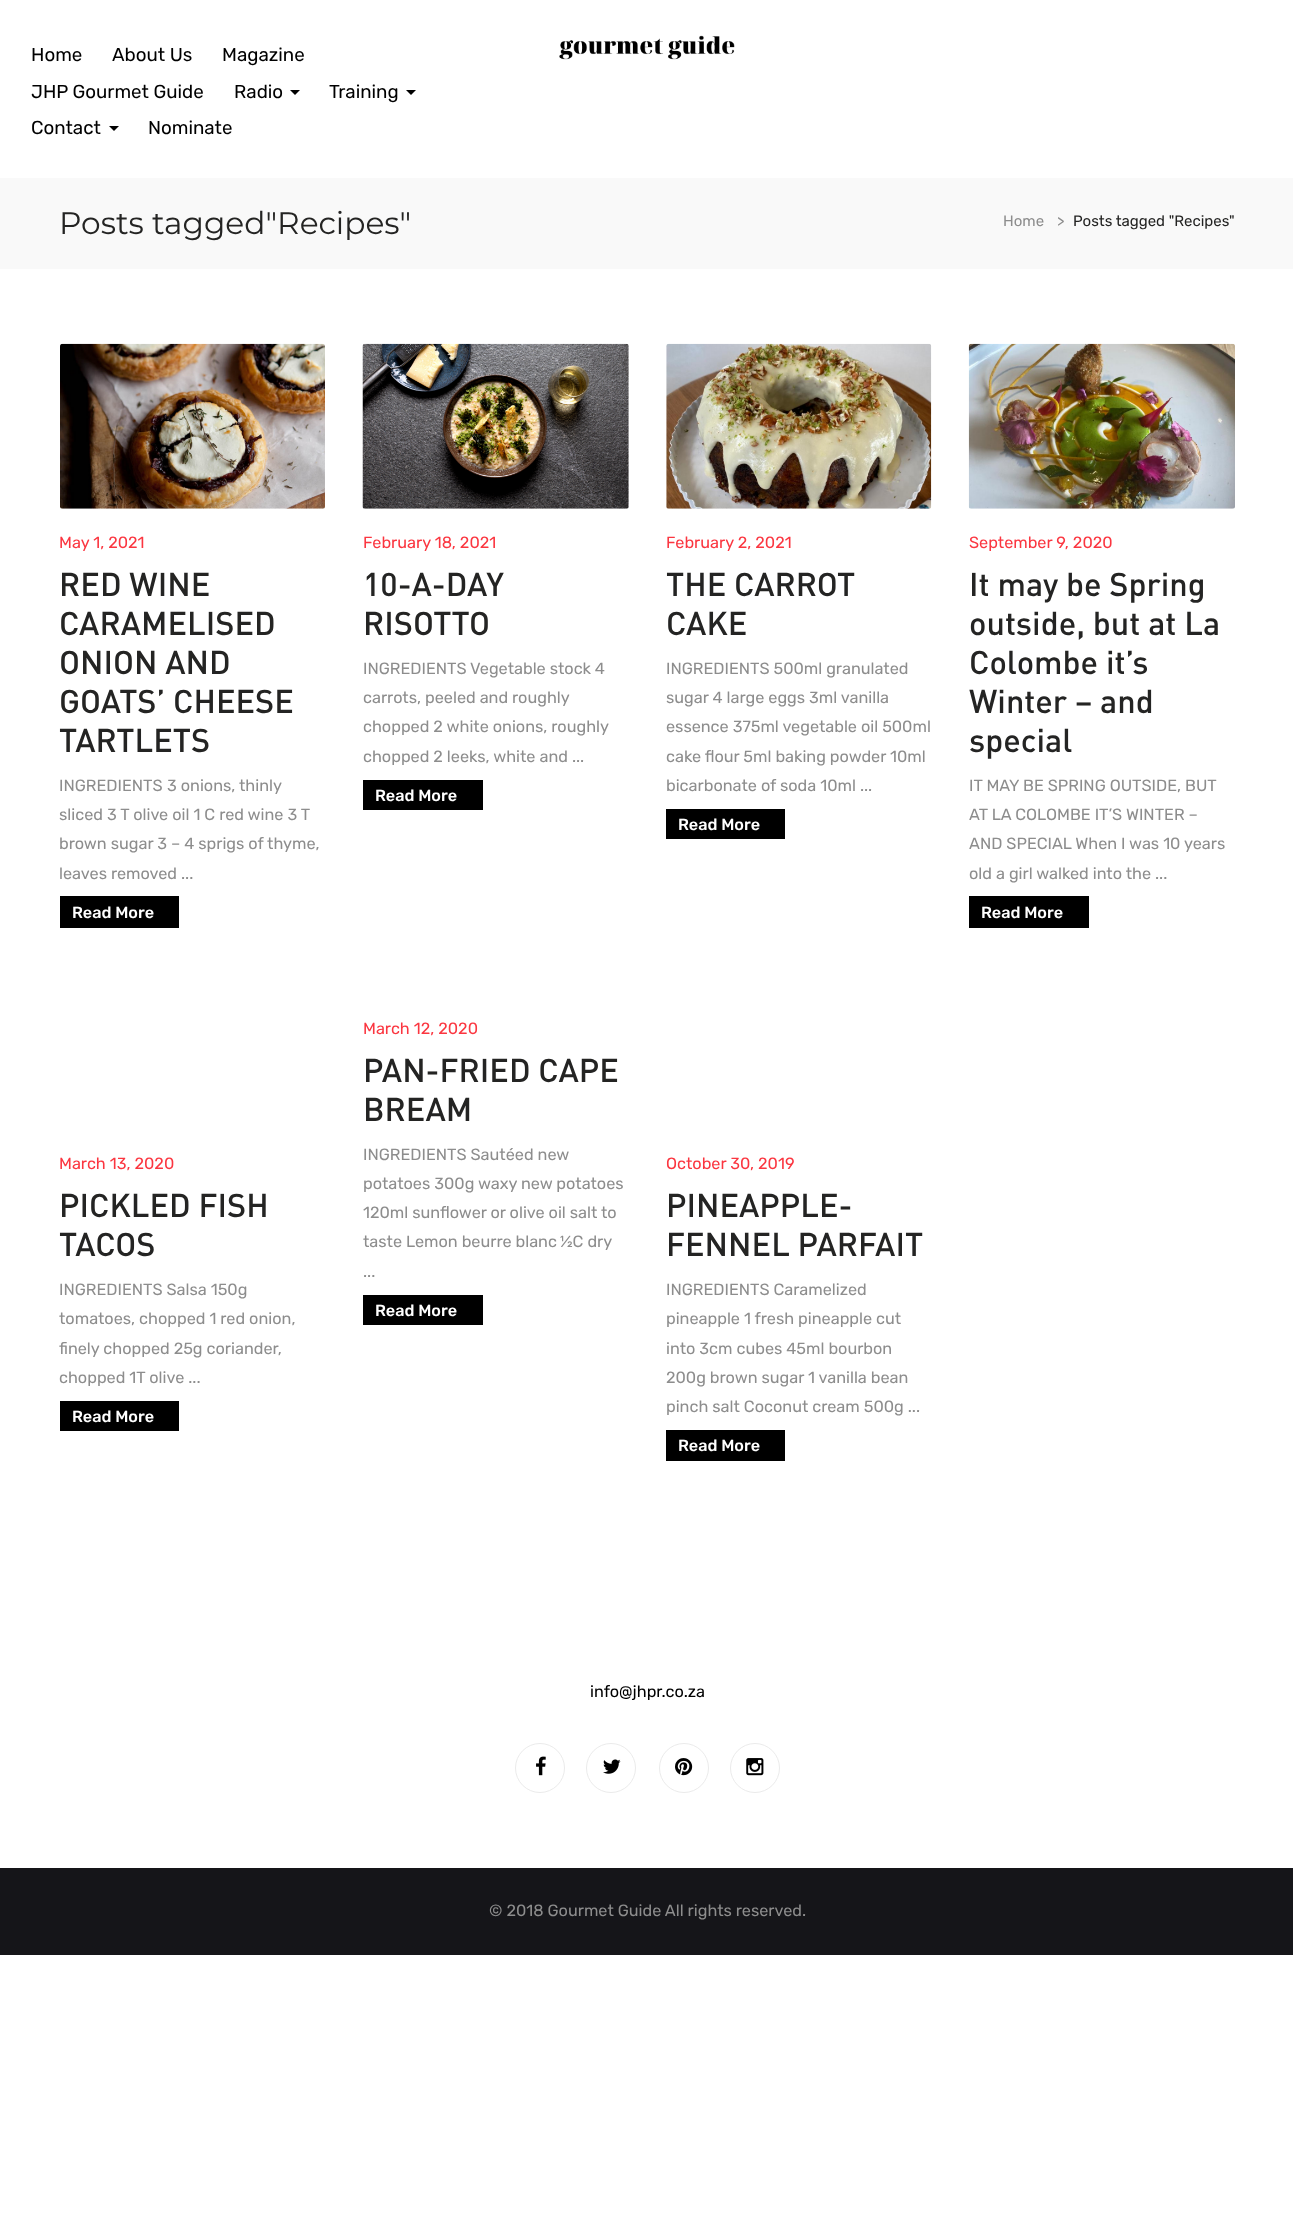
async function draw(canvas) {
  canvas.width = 1293;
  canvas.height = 2223;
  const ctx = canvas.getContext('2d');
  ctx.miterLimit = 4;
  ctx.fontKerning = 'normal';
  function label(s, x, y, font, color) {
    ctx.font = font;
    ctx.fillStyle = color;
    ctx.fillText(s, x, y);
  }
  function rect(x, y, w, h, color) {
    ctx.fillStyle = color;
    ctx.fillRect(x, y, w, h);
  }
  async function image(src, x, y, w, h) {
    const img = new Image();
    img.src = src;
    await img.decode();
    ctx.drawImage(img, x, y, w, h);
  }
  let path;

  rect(0, 0, 1293, 2223, '#fff');
  label('Home', 31, 61, '18.75px Rubik', '#000');
  label('About Us', 112, 61, '18.75px Rubik', '#000');
  label('Magazine', 222, 61, '18.75px Rubik', '#000');
  label('JHP Gourmet Guide', 31, 98, '18.75px Rubik', '#000');
  label('Radio', 234, 98, '18.75px Rubik', '#000');
  path = new Path2D('M290 90H300L295 95Z');
  ctx.fill(path);
  label('Training', 329, 98, '18.75px Rubik', '#000');
  path = new Path2D('M406 90H416L411 95Z');
  ctx.fill(path);
  label('Contact', 31, 134, '18.75px Rubik', '#000');
  path = new Path2D('M109 126H119L114 131Z');
  ctx.fill(path);
  label('Nominate', 148, 134, '18.75px Rubik', '#000');
  await image('assets/img1.png', 559, 35, 176, 25);
  rect(0, 178, 1293, 91, '#f9f9f9');
  label('Posts tagged"Recipes"', 59, 234, '31.25px Montserrat', '#242423');
  label('Home', 1003, 226, '15px Rubik', '#8d8d8d');
  label('>', 1057, 226, '15px Rubik', '#8d8d8d');
  label('Posts tagged "Recipes"', 1073, 226, '15px Rubik', '#242423');
  await image('assets/img2.png', 60, 343, 265, 166);
  label('May 1, 2021', 59, 548, '16.25px Rubik', '#fb3640');
  label('RED WINE', 59, 596, '500 32.5px DIN', '#242423');
  label('CARAMELISED', 59, 635, '500 32.5px DIN', '#242423');
  label('ONION AND', 59, 674, '500 32.5px DIN', '#242423');
  label('GOATS’ CHEESE', 59, 713, '500 32.5px DIN', '#242423');
  label('TARTLETS', 59, 752, '500 32.5px DIN', '#242423');
  label('INGREDIENTS', 59, 791, '16.25px Rubik', '#8d8d8d');
  label('3 onions, thinly', 167, 791, '16.25px Rubik', '#8d8d8d');
  label('sliced 3 T olive oil 1 C red wine 3 T', 59, 820, '16.25px Rubik', '#8d8d8d');
  label('brown sugar 3 – 4 sprigs of thyme,', 59, 849, '16.25px Rubik', '#8d8d8d');
  label('leaves removed ...', 59, 879, '16.25px Rubik', '#8d8d8d');
  rect(60, 896, 119, 32, '#000');
  label('Read More', 72, 918, '500 16.25px Rubik', '#fff');
  await image('assets/img3.png', 362, 343, 267, 166);
  label('February 18, 2021', 363, 548, '16.25px Rubik', '#fb3640');
  label('10-A-DAY', 363, 596, '500 32.5px DIN', '#242423');
  label('RISOTTO', 363, 635, '500 32.5px DIN', '#242423');
  label('INGREDIENTS', 363, 674, '16.25px Rubik', '#8d8d8d');
  label('Vegetable stock 4', 470, 674, '16.25px Rubik', '#8d8d8d');
  label('carrots, peeled and roughly', 363, 703, '16.25px Rubik', '#8d8d8d');
  label('chopped 2 white onions, roughly', 363, 732, '16.25px Rubik', '#8d8d8d');
  label('chopped 2 leeks, white and ...', 363, 762, '16.25px Rubik', '#8d8d8d');
  rect(363, 780, 120, 30, '#000');
  label('Read More', 375, 801, '500 16.25px Rubik', '#fff');
  await image('assets/img4.png', 666, 343, 266, 166);
  label('February 2, 2021', 666, 548, '16.25px Rubik', '#fb3640');
  label('THE CARROT', 666, 596, '500 32.5px DIN', '#242423');
  label('CAKE', 666, 635, '500 32.5px DIN', '#242423');
  label('INGREDIENTS 500ml granulated', 666, 674, '16.25px Rubik', '#8d8d8d');
  label('sugar 4 large eggs 3ml vanilla', 666, 703, '16.25px Rubik', '#8d8d8d');
  label('essence 375ml vegetable oil 500ml', 666, 732, '16.25px Rubik', '#8d8d8d');
  label('cake flour 5ml baking powder 10ml', 666, 762, '16.25px Rubik', '#8d8d8d');
  label('bicarbonate of soda 10ml ...', 666, 791, '16.25px Rubik', '#8d8d8d');
  rect(666, 809, 119, 30, '#000');
  label('Read More', 678, 830, '500 16.25px Rubik', '#fff');
  await image('assets/img5.png', 968, 343, 267, 166);
  label('September 9, 2020', 969, 548, '16.25px Rubik', '#fb3640');
  label('It may be Spring', 969, 596, '500 32.5px DIN', '#242423');
  label('outside, but at La', 969, 635, '500 32.5px DIN', '#242423');
  label('Colombe it’s', 969, 674, '500 32.5px DIN', '#242423');
  label('Winter – and', 969, 713, '500 32.5px DIN', '#242423');
  label('special', 969, 752, '500 32.5px DIN', '#242423');
  label('IT MAY BE SPRING OUTSIDE, BUT', 969, 791, '16.25px Rubik', '#8d8d8d');
  label('AT LA COLOMBE IT’S WINTER –', 969, 820, '16.25px Rubik', '#8d8d8d');
  label('AND SPECIAL When I was 10 years', 969, 849, '16.25px Rubik', '#8d8d8d');
  label('old a girl walked into the ...', 969, 879, '16.25px Rubik', '#8d8d8d');
  rect(969, 896, 120, 32, '#000');
  label('Read More', 981, 918, '500 16.25px Rubik', '#fff');
  label('March 13, 2020', 59, 1169, '16.25px Rubik', '#fb3640');
  label('PICKLED FISH', 59, 1217, '500 32.5px DIN', '#242423');
  label('TACOS', 59, 1256, '500 32.5px DIN', '#242423');
  label('INGREDIENTS Salsa 150g', 59, 1295, '16.25px Rubik', '#8d8d8d');
  label('tomatoes, chopped 1 red onion,', 59, 1324, '16.25px Rubik', '#8d8d8d');
  label('finely chopped 25g coriander,', 59, 1354, '16.25px Rubik', '#8d8d8d');
  label('chopped 1T olive ...', 59, 1383, '16.25px Rubik', '#8d8d8d');
  rect(60, 1401, 119, 30, '#000');
  label('Read More', 72, 1422, '500 16.25px Rubik', '#fff');
  label('March 12, 2020', 363, 1034, '16.25px Rubik', '#fb3640');
  label('PAN-FRIED CAPE', 363, 1082, '500 32.5px DIN', '#242423');
  label('BREAM', 363, 1121, '500 32.5px DIN', '#242423');
  label('INGREDIENTS Sautéed new', 363, 1160, '16.25px Rubik', '#8d8d8d');
  label('potatoes 300g waxy new potatoes', 363, 1189, '16.25px Rubik', '#8d8d8d');
  label('120ml sunflower or olive oil salt to', 363, 1218, '16.25px Rubik', '#8d8d8d');
  label('taste Lemon beurre blanc', 363, 1247, '16.25px Rubik', '#8d8d8d');
  label('½C dry', 560, 1247, '16.25px Rubik', '#8d8d8d');
  label('...', 363, 1277, '16.25px Rubik', '#8d8d8d');
  rect(363, 1295, 120, 30, '#000');
  label('Read More', 375, 1316, '500 16.25px Rubik', '#fff');
  label('October 30, 2019', 666, 1169, '16.25px Rubik', '#fb3640');
  label('PINEAPPLE-', 666, 1217, '500 32.5px DIN', '#242423');
  label('FENNEL PARFAIT', 666, 1256, '500 32.5px DIN', '#242423');
  label('INGREDIENTS Caramelized', 666, 1295, '16.25px Rubik', '#8d8d8d');
  label('pineapple 1 fresh pineapple cut', 666, 1324, '16.25px Rubik', '#8d8d8d');
  label('into 3cm cubes 45ml bourbon', 666, 1354, '16.25px Rubik', '#8d8d8d');
  label('200g brown sugar 1 vanilla bean', 666, 1383, '16.25px Rubik', '#8d8d8d');
  label('pinch salt Coconut cream 500g ...', 666, 1412, '16.25px Rubik', '#8d8d8d');
  rect(666, 1430, 119, 31, '#000');
  label('Read More', 678, 1451, '500 16.25px Rubik', '#fff');
  label('info@jhpr.co.za', 590, 1697, '16.25px Rubik', '#000');
  ctx.beginPath();
  ctx.arc(540, 1768, 24.5, 0, 2 * Math.PI);
  ctx.strokeStyle = '#ebebeb';
  ctx.stroke();
  await image('assets/img6.png', 536, 1756, 10, 20);
  ctx.beginPath();
  ctx.arc(611, 1768, 24.5, 0, 2 * Math.PI);
  ctx.stroke();
  await image('assets/img7.png', 603, 1759, 18, 15);
  ctx.beginPath();
  ctx.arc(684, 1768, 24.5, 0, 2 * Math.PI);
  ctx.stroke();
  await image('assets/img8.png', 675, 1758, 18, 18);
  ctx.beginPath();
  ctx.arc(755, 1768, 24.5, 0, 2 * Math.PI);
  ctx.stroke();
  await image('assets/img9.png', 746, 1758, 18, 18);
  rect(0, 1868, 1293, 87, '#151519');
  label('© 2018 Gourmet Guide All rights reserved.', 489, 1916, '16.25px Rubik', '#8d8d8d');
}

draw(document.querySelector('canvas'));
